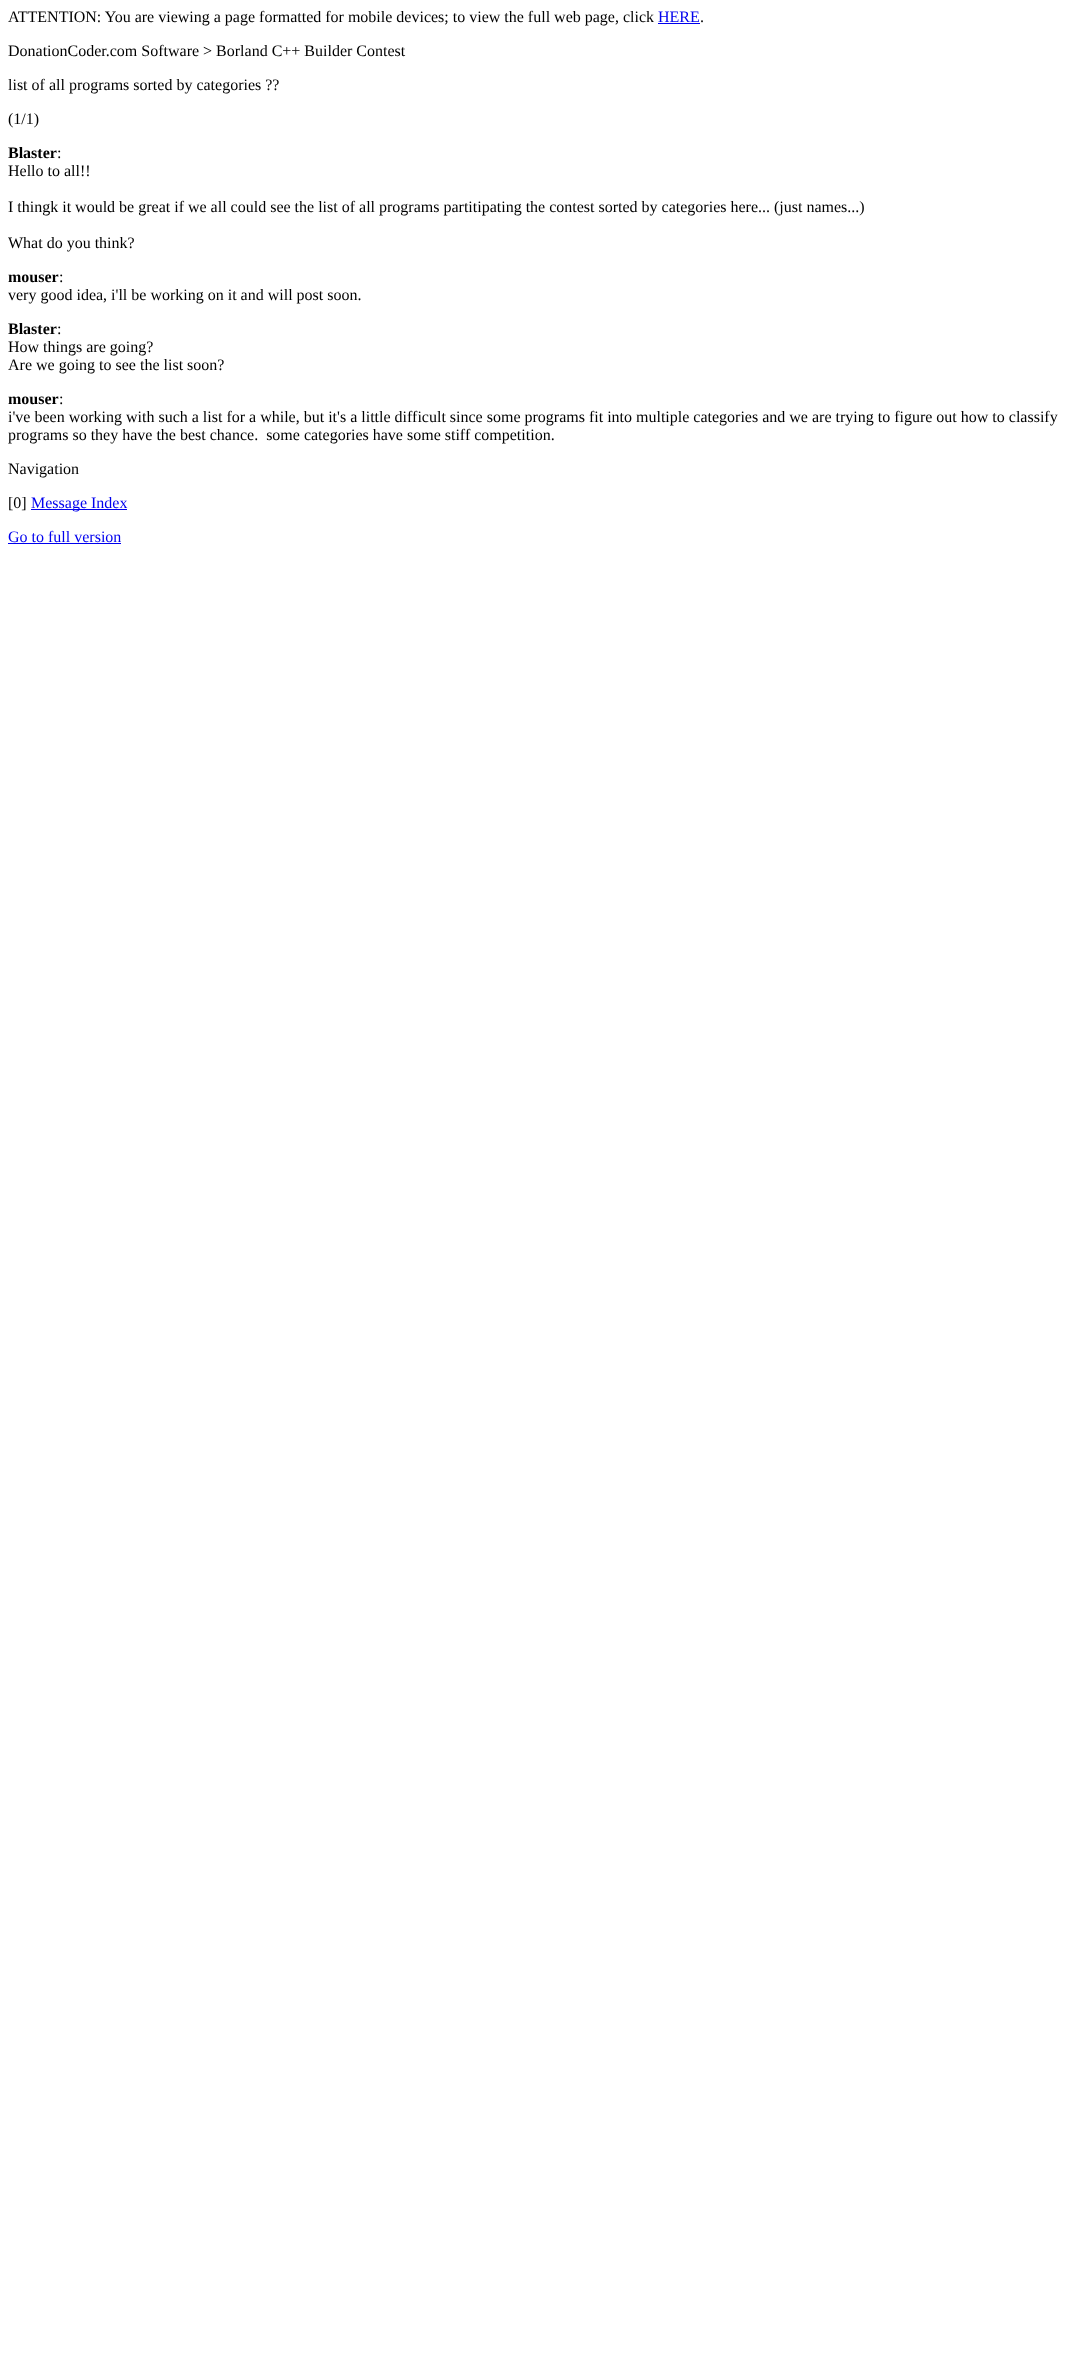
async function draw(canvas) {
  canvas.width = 1088;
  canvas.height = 2366;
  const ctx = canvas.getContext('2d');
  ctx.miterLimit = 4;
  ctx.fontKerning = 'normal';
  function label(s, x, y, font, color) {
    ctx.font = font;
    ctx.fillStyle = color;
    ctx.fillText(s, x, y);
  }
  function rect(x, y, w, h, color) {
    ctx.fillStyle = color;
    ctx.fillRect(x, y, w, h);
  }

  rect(0, 0, 1088, 2366, '#fff');
  label('ATTENTION: You are viewing a page formatted for mobile devices; to view the full web page, click', 8, 22, '16px Liberation Serif', '#000');
  label('HERE', 658, 22, '16px Liberation Serif', '#00e');
  rect(658, 23, 42, 1, '#00e');
  label('.', 700, 22, '16px Liberation Serif', '#000');
  label('DonationCoder.com Software > Borland C++ Builder Contest', 8, 56, '16px Liberation Serif', '#000');
  label('list of all programs sorted by categories ??', 8, 90, '16px Liberation Serif', '#000');
  label('(1/1)', 8, 124, '16px Liberation Serif', '#000');
  label('Blaster', 8, 158, 'bold 16px Liberation Serif', '#000');
  label(':', 57, 158, '16px Liberation Serif', '#000');
  label('Hello to all!!', 8, 176, '16px Liberation Serif', '#000');
  label('I thingk it would be great if we all could see the list of all programs partitipating the contest sorted by categories here... (just names...)', 8, 212, '16px Liberation Serif', '#000');
  label('What do you think?', 8, 248, '16px Liberation Serif', '#000');
  label('mouser', 8, 282, 'bold 16px Liberation Serif', '#000');
  label(':', 59, 282, '16px Liberation Serif', '#000');
  label('very good idea, i\'ll be working on it and will post soon.', 8, 300, '16px Liberation Serif', '#000');
  label('Blaster', 8, 334, 'bold 16px Liberation Serif', '#000');
  label(':', 57, 334, '16px Liberation Serif', '#000');
  label('How things are going?', 8, 352, '16px Liberation Serif', '#000');
  label('Are we going to see the list soon?', 8, 370, '16px Liberation Serif', '#000');
  label('mouser', 8, 404, 'bold 16px Liberation Serif', '#000');
  label(':', 59, 404, '16px Liberation Serif', '#000');
  label('i\'ve been working with such a list for a while, but it\'s a little difficult since some programs fit into multiple categories and we are trying to figure out how to classify', 8, 422, '16px Liberation Serif', '#000');
  label('programs so they have the best chance.  some categories have some stiff competition.', 8, 440, '16px Liberation Serif', '#000');
  label('Navigation', 8, 474, '16px Liberation Serif', '#000');
  label('[0]', 8, 508, '16px Liberation Serif', '#000');
  rect(31, 509, 96, 1, '#00e');
  label('Message Index', 31, 508, '16px Liberation Serif', '#00e');
  label('Go to full version', 8, 542, '16px Liberation Serif', '#00e');
  rect(8, 543, 113, 1, '#00e');
}

draw(document.querySelector('canvas'));
